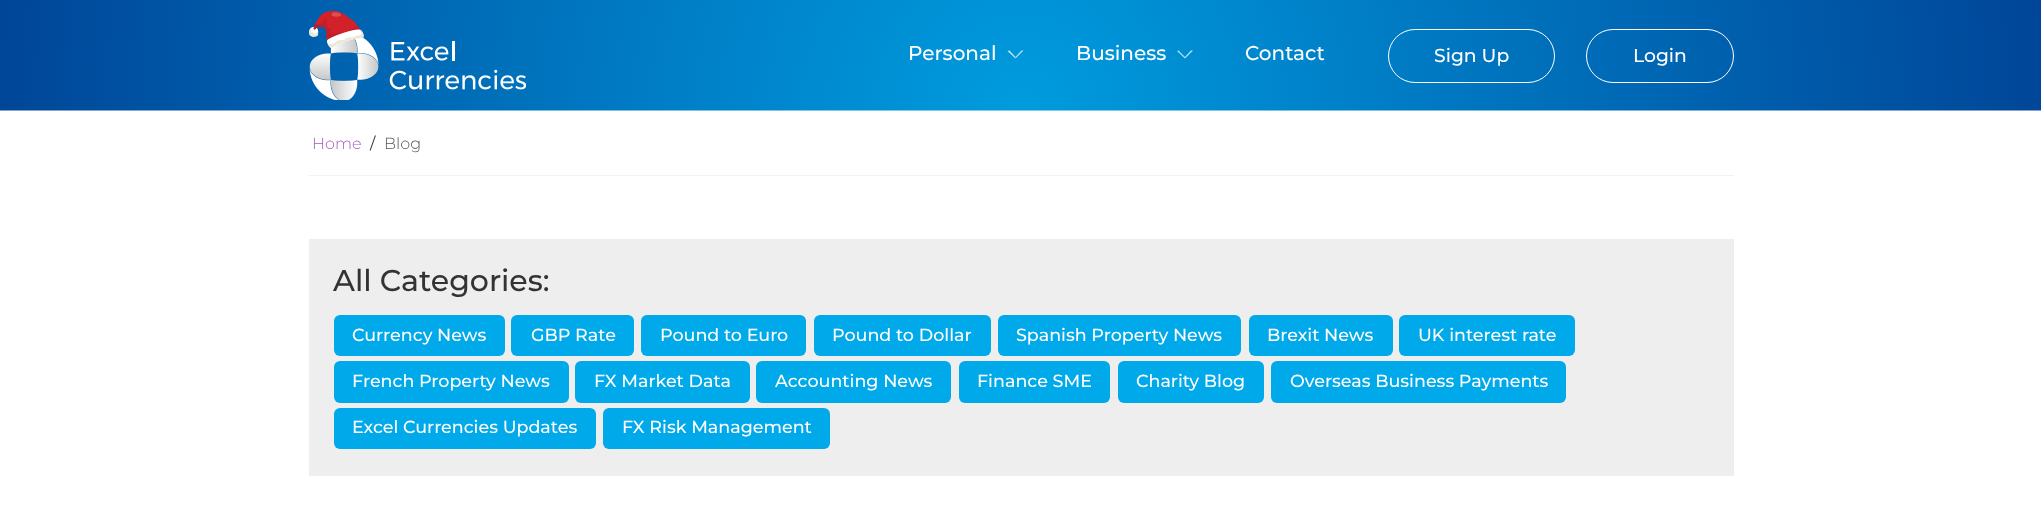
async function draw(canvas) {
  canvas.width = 2041;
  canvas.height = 516;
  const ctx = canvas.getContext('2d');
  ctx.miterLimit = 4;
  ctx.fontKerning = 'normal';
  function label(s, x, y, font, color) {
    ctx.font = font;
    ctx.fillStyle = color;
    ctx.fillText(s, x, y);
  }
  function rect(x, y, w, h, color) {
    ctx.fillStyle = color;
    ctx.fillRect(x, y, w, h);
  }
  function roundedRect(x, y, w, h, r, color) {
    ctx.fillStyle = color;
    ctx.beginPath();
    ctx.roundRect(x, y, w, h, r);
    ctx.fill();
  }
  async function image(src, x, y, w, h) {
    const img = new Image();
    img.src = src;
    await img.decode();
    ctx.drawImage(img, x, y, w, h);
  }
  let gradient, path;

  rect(0, 0, 2041, 516, '#fff');
  gradient = ctx.createRadialGradient(1021, 110, 0, 1021, 110, 1276);
  gradient.addColorStop(0, '#009cde');
  gradient.addColorStop(1, '#003087');
  ctx.fillStyle = gradient;
  ctx.fillRect(0, 0, 2041, 110);
  gradient = ctx.createRadialGradient(1021, 220, 0, 1021, 220, 1276);
  gradient.addColorStop(0, '#80ceef');
  gradient.addColorStop(1, '#8098c3');
  ctx.fillStyle = gradient;
  ctx.fillRect(0, 110, 2041, 1);
  await image('assets/img1.png', 309, 10, 217, 90);
  label('Personal', 908, 60, '500 20px Montserrat', '#fff');
  ctx.fillStyle = '#bfe5f6';
  path = new Path2D('M1023.5 50.5L1015.5 58.5V57L1021.5 50.5Z');
  ctx.fill(path);
  path = new Path2D('M1015.5 58.5L1007.5 51L1009.5 50.5L1015.5 57Z');
  ctx.fill(path);
  label('Business', 1076, 60, '500 20px Montserrat', '#fff');
  ctx.fillStyle = '#bfe3f4';
  path = new Path2D('M1193 50.5L1185 58.5V57L1191 50.5ZM1185 58.5L1177 51L1178.5 50.5L1185 57Z');
  ctx.fill(path);
  label('Contact', 1245, 60, '500 20px Montserrat', '#fff');
  ctx.beginPath();
  ctx.roundRect(1388.5, 29.5, 166, 53, 26.5);
  ctx.strokeStyle = '#fff';
  ctx.stroke();
  label('Sign Up', 1434, 62, '500 18.75px Montserrat', '#fff');
  ctx.beginPath();
  ctx.roundRect(1586.5, 29.5, 147, 53, 26.5);
  ctx.stroke();
  label('Login', 1633, 62, '500 18.75px Montserrat', '#fff');
  rect(309, 175, 1425, 1, '#f2f2f2');
  label('Home', 312, 149, '300 16px Montserrat', '#a35dbe');
  label('/', 370, 149, '16px Montserrat', '#333');
  label('Blog', 384, 149, '300 16px Montserrat', '#565656');
  rect(309, 239, 1425, 237, '#eee');
  label('All Categories:', 333, 291, '500 30px Montserrat', '#333');
  roundedRect(334, 315, 171, 41, 6, '#00a9ea');
  label('Currency News', 352, 341, '500 17.5px Montserrat', '#fff');
  roundedRect(511, 315, 123, 41, 6, '#00a9ea');
  label('GBP Rate', 531, 341, '500 17.5px Montserrat', '#fff');
  roundedRect(641, 315, 165, 41, 6, '#00a9ea');
  label('Pound to Euro', 660, 341, '500 17.5px Montserrat', '#fff');
  roundedRect(814, 315, 177, 41, 6, '#00a9ea');
  label('Pound to Dollar', 832, 341, '500 17.5px Montserrat', '#fff');
  roundedRect(998, 315, 243, 41, 6, '#00a9ea');
  label('Spanish Property News', 1016, 341, '500 17.5px Montserrat', '#fff');
  roundedRect(1249, 315, 144, 41, 6, '#00a9ea');
  label('Brexit News', 1267, 341, '500 17.5px Montserrat', '#fff');
  roundedRect(1399, 315, 176, 41, 6, '#00a9ea');
  label('UK interest rate', 1418, 341, '500 17.5px Montserrat', '#fff');
  roundedRect(334, 361, 235, 42, 6, '#00a9ea');
  label('French Property News', 352, 387, '500 17.5px Montserrat', '#fff');
  roundedRect(575, 361, 175, 42, 6, '#00a9ea');
  label('FX Market Data', 594, 387, '500 17.5px Montserrat', '#fff');
  roundedRect(756, 361, 195, 42, 6, '#00a9ea');
  label('Accounting News', 775, 387, '500 17.5px Montserrat', '#fff');
  roundedRect(959, 361, 151, 42, 6, '#00a9ea');
  label('Finance SME', 977, 387, '500 17.5px Montserrat', '#fff');
  roundedRect(1118, 361, 146, 42, 6, '#00a9ea');
  label('Charity Blog', 1136, 387, '500 17.5px Montserrat', '#fff');
  roundedRect(1271, 361, 295, 42, 6, '#00a9ea');
  label('Overseas Business Payments', 1290, 387, '500 17.5px Montserrat', '#fff');
  roundedRect(334, 408, 262, 41, 6, '#00a9ea');
  label('Excel Currencies Updates', 352, 433, '500 17.5px Montserrat', '#fff');
  roundedRect(603, 408, 227, 41, 6, '#00a9ea');
  label('FX Risk Management', 622, 433, '500 17.5px Montserrat', '#fff');
}

draw(document.querySelector('canvas'));
